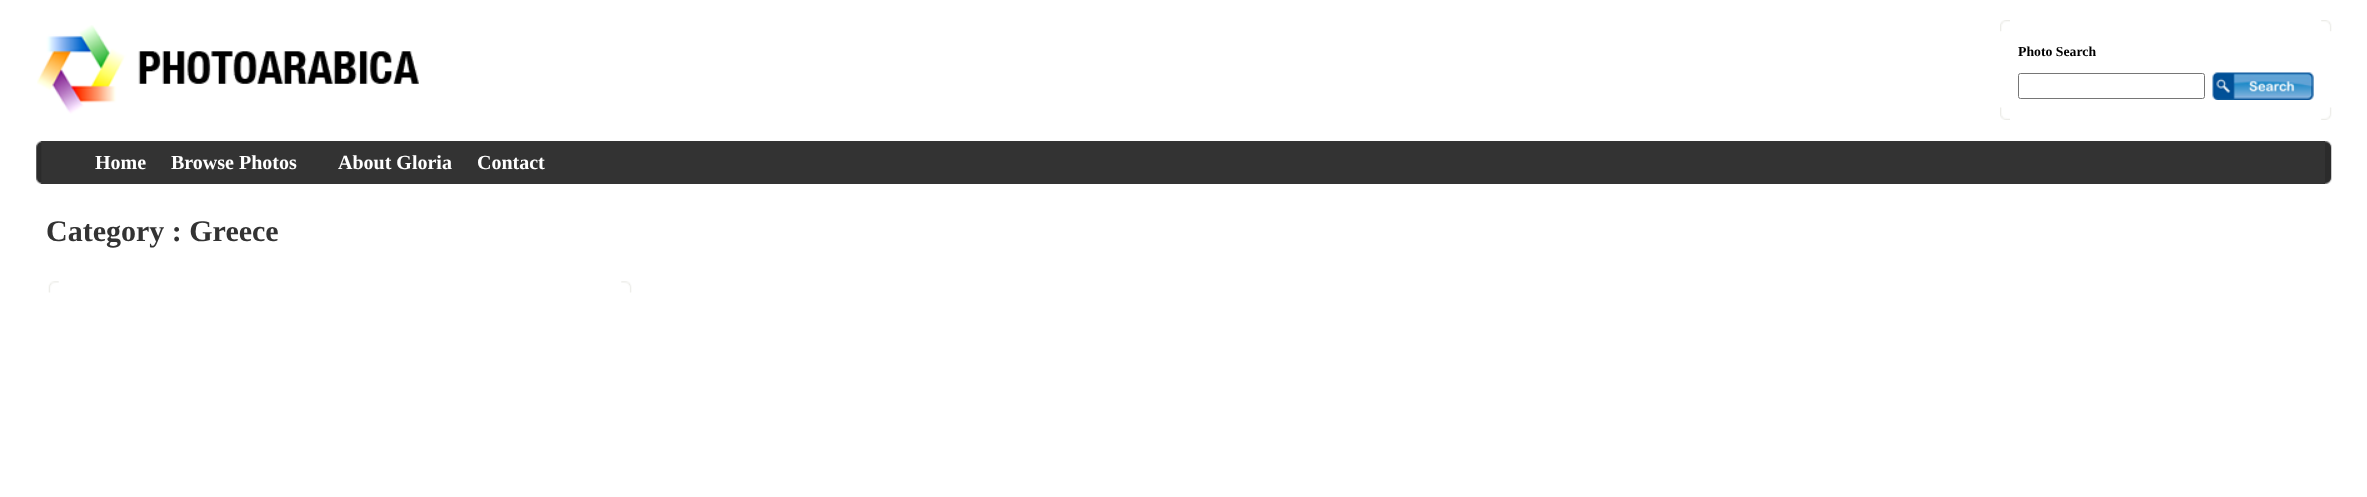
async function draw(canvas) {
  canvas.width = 2367;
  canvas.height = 497;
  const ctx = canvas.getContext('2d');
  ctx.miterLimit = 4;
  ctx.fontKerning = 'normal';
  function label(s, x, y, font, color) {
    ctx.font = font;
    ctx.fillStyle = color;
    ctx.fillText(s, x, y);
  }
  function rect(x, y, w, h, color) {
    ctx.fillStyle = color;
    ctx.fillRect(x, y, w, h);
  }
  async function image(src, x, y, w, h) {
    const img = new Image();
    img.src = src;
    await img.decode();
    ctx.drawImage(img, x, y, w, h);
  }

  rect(0, 0, 2367, 497, '#fff');
  await image('assets/img1.png', 37, 25, 382, 89);
  await image('assets/img2.png', 2000, 20, 10, 12);
  await image('assets/img3.png', 2321, 20, 11, 12);
  label('Photo Search', 2018, 56, 'bold 13.75px Liberation Serif', '#000');
  ctx.beginPath();
  ctx.roundRect(2018.5, 73.5, 186, 25, 2);
  ctx.strokeStyle = '#767676';
  ctx.stroke();
  await image('assets/img4.png', 2212, 72, 102, 28);
  await image('assets/img5.png', 2000, 107, 10, 13);
  await image('assets/img6.png', 2321, 107, 11, 13);
  rect(41, 141, 2284, 43, '#333');
  await image('assets/img7.png', 36, 141, 6, 43);
  label('Home', 95, 169, 'bold 20px Liberation Serif', '#fff');
  label('Browse Photos', 171, 169, 'bold 20px Liberation Serif', '#fff');
  label('About Gloria', 338, 169, 'bold 20px Liberation Serif', '#fff');
  label('Contact', 477, 169, 'bold 20px Liberation Serif', '#fff');
  await image('assets/img8.png', 2325, 141, 7, 43);
  label('Category : Greece', 46, 241, 'bold 30px Liberation Serif', '#333');
  await image('assets/img9.png', 48, 281, 11, 12);
  await image('assets/img10.png', 621, 281, 11, 12);
}

draw(document.querySelector('canvas'));
